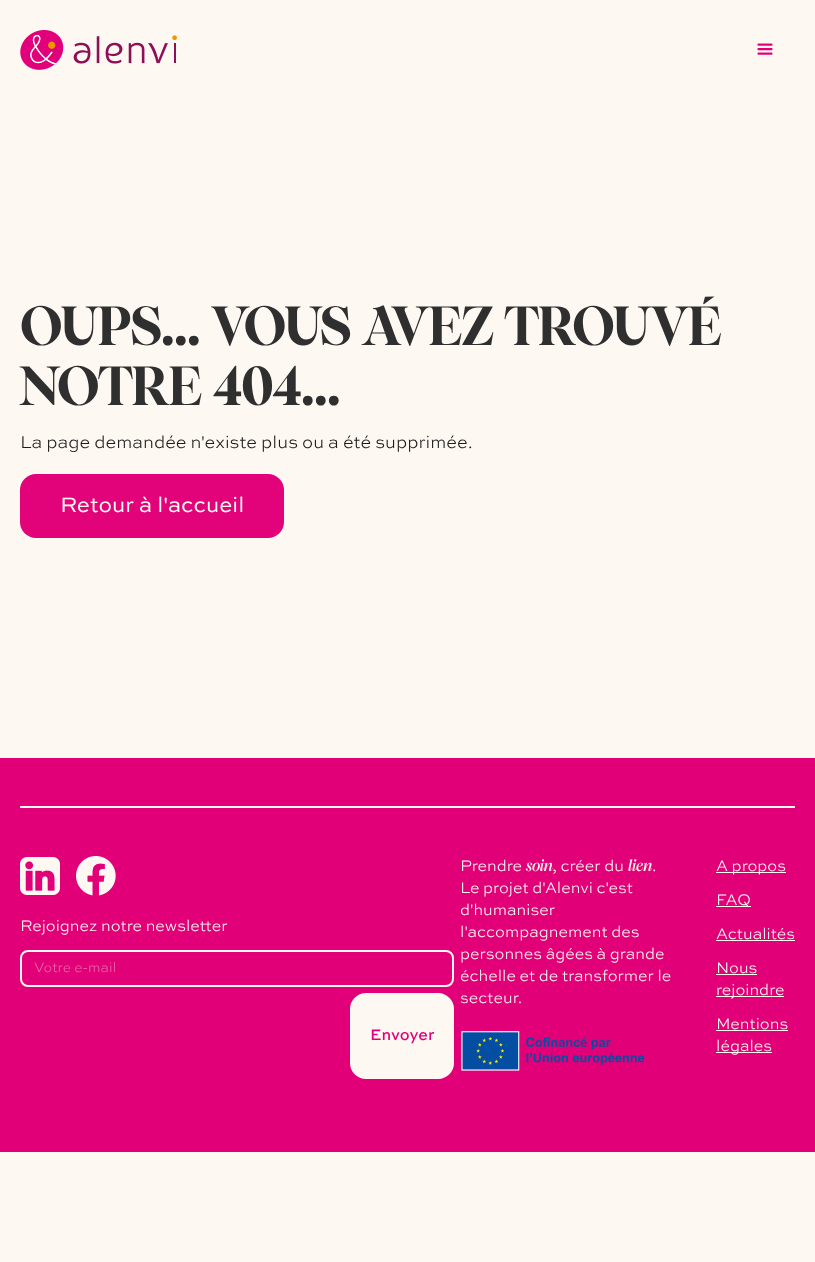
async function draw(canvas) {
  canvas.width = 815;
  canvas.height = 1262;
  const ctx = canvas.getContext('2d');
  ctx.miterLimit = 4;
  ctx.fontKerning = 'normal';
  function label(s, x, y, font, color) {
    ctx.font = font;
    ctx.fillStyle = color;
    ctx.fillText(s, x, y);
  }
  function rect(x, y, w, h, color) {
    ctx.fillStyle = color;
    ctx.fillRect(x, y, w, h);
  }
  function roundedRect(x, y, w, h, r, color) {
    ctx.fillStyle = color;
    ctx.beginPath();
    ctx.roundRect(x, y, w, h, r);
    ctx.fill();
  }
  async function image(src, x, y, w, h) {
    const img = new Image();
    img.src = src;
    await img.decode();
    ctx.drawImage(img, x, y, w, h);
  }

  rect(0, 0, 815, 1262, '#fef8f2');
  await image('assets/img1.png', 20, 30, 157, 40);
  await image('assets/img2.png', 757, 43, 16, 12);
  label('OUPS... VOUS AVEZ TROUVÉ', 20, 345, 'bold 55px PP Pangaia', '#302f2f');
  label('NOTRE 404...', 20, 405, 'bold 55px PP Pangaia', '#302f2f');
  label('La page demandée n\'existe plus ou a été supprimée.', 20, 448, '300 18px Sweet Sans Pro', '#1c1c1c');
  roundedRect(20, 474, 264, 64, 16, '#e20279');
  label('Retour à l\'accueil', 60, 512, '22px Sweet Sans Pro', '#fef8f2');
  rect(0, 758, 815, 394, '#e20079');
  rect(20, 806, 775, 2, '#fef8f2');
  await image('assets/img3.png', 20, 857, 40, 38);
  await image('assets/img4.png', 76, 856, 40, 40);
  label('Rejoignez notre newsletter', 20, 931, '300 16px Sweet Sans Pro', '#fef8f2');
  ctx.beginPath();
  ctx.roundRect(21, 951, 432, 35, 7);
  ctx.strokeStyle = '#fef8f2';
  ctx.lineWidth = 2;
  ctx.stroke();
  label('Votre e-mail', 34, 972, '300 14px Sweet Sans Pro', '#ed63a9');
  roundedRect(350, 993, 104, 86, 16, '#fef8f2');
  label('Envoyer', 370, 1040, '500 16px Sweet Sans Pro', '#e20079');
  label('Prendre', 460, 871, '300 16px Sweet Sans Pro', '#fef8f2');
  label('soin', 526, 871, 'italic 500 16px PP Pangaia', '#fef8f2');
  label(', créer du', 552, 871, '300 16px Sweet Sans Pro', '#fef8f2');
  label('lien', 628, 871, 'italic 500 16px PP Pangaia', '#fef8f2');
  label('.', 652, 871, '300 16px Sweet Sans Pro', '#fef8f2');
  label('Le projet d\'Alenvi c\'est', 460, 893, '300 16px Sweet Sans Pro', '#fef8f2');
  label('d\'humaniser', 460, 915, '300 16px Sweet Sans Pro', '#fef8f2');
  label('l\'accompagnement des', 460, 937, '300 16px Sweet Sans Pro', '#fef8f2');
  label('personnes âgées à grande', 460, 959, '300 16px Sweet Sans Pro', '#fef8f2');
  label('échelle et de transformer le', 460, 981, '300 16px Sweet Sans Pro', '#fef8f2');
  label('secteur.', 460, 1003, '300 16px Sweet Sans Pro', '#fef8f2');
  await image('assets/img5.png', 461, 1031, 184, 40);
  rect(716, 872, 70, 1, '#fef8f2');
  label('A propos', 716, 871, '300 16px Sweet Sans Pro', '#fef8f2');
  rect(716, 906, 35, 1, '#fef8f2');
  label('FAQ', 716, 905, '300 16px Sweet Sans Pro', '#fef8f2');
  label('Actualités', 716, 939, '300 16px Sweet Sans Pro', '#fef8f2');
  rect(716, 940, 79, 1, '#fef8f2');
  label('Nous', 716, 973, '300 16px Sweet Sans Pro', '#fef8f2');
  rect(716, 974, 41, 1, '#fef8f2');
  rect(716, 996, 68, 1, '#fef8f2');
  label('rejoindre', 716, 995, '300 16px Sweet Sans Pro', '#fef8f2');
  label('Mentions', 716, 1029, '300 16px Sweet Sans Pro', '#fef8f2');
  rect(716, 1030, 72, 1, '#fef8f2');
  rect(716, 1052, 56, 1, '#fef8f2');
  label('légales', 716, 1051, '300 16px Sweet Sans Pro', '#fef8f2');
}

draw(document.querySelector('canvas'));
